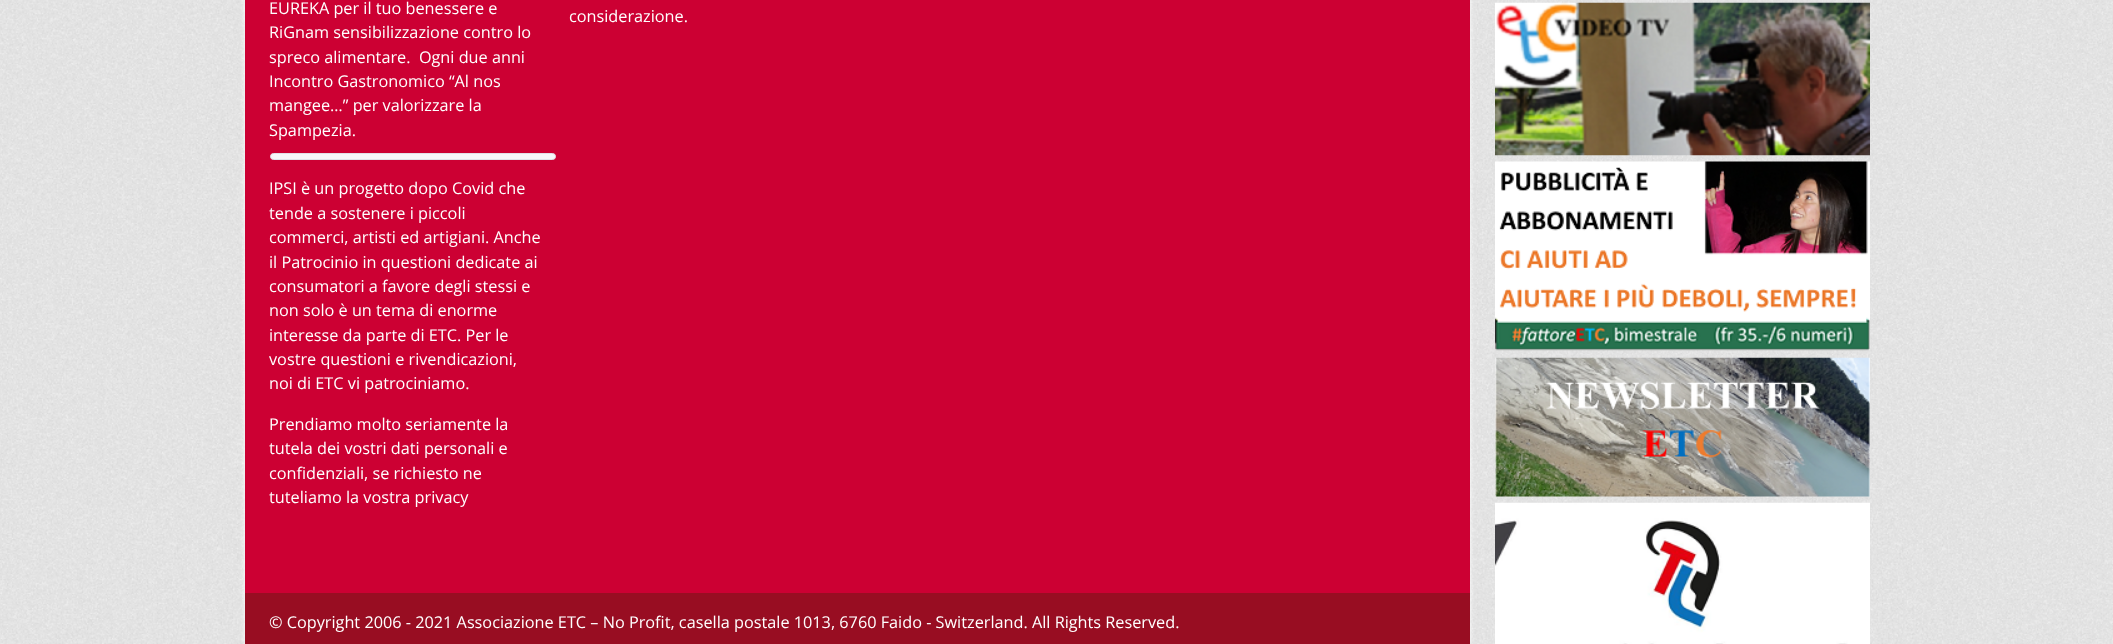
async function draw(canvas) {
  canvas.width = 2113;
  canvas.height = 644;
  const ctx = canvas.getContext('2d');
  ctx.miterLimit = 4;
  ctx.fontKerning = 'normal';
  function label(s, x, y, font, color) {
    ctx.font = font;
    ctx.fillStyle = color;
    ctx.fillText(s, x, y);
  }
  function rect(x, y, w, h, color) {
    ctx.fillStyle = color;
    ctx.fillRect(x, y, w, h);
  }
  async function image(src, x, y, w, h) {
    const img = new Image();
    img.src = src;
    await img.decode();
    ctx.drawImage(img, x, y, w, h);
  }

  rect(0, 0, 2113, 644, '#fff');
  await image('assets/img1.png', 0, 0, 2113, 644);
  ctx.filter = 'blur(2.5px)';
  ctx.beginPath();
  ctx.rect(245, -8, 1225, 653);
  ctx.fill();
  ctx.filter = 'none';
  rect(245, 0, 1225, 593, '#c03');
  label('EUREKA per il tuo benessere e', 269, 14, '16.25px Open Sans', '#fff');
  label('RiGnam sensibilizzazione contro lo', 269, 38, '16.25px Open Sans', '#fff');
  label('spreco alimentare.  Ogni due anni', 269, 63, '16.25px Open Sans', '#fff');
  label('Incontro Gastronomico “Al nos', 269, 87, '16.25px Open Sans', '#fff');
  label('mangee…” per valorizzare la', 269, 111, '16.25px Open Sans', '#fff');
  label('Spampezia.', 269, 136, '16.25px Open Sans', '#fff');
  ctx.fillStyle = '#f7f7f9';
  ctx.beginPath();
  ctx.roundRect(270.5, 153.5, 285, 6, 3);
  ctx.fill();
  ctx.strokeStyle = '#e1e1e8';
  ctx.stroke();
  label('IPSI è un progetto dopo Covid che', 269, 194, '16.25px Open Sans', '#fff');
  label('tende a sostenere i piccoli', 269, 219, '16.25px Open Sans', '#fff');
  label('commerci, artisti ed artigiani. Anche', 269, 243, '16.25px Open Sans', '#fff');
  label('il Patrocinio in questioni dedicate ai', 269, 268, '16.25px Open Sans', '#fff');
  label('consumatori a favore degli stessi e', 269, 292, '16.25px Open Sans', '#fff');
  label('non solo è un tema di enorme', 269, 316, '16.25px Open Sans', '#fff');
  label('interesse da parte di ETC. Per le', 269, 341, '16.25px Open Sans', '#fff');
  label('vostre questioni e rivendicazioni,', 269, 365, '16.25px Open Sans', '#fff');
  label('noi di ETC vi patrociniamo.', 269, 389, '16.25px Open Sans', '#fff');
  label('Prendiamo molto seriamente la', 269, 430, '16.25px Open Sans', '#fff');
  label('tutela dei vostri dati personali e', 269, 454, '16.25px Open Sans', '#fff');
  label('confidenziali, se richiesto ne', 269, 479, '16.25px Open Sans', '#fff');
  label('tuteliamo la vostra privacy', 269, 503, '16.25px Open Sans', '#fff');
  label('considerazione.', 569, 22, '16.25px Open Sans', '#fff');
  rect(245, 593, 1225, 51, '#980d22');
  label('© Copyright 2006 - 2021 Associazione ETC – No Profit, casella postale 1013, 6760 Faido - Switzerland. All Rights Reserved.', 269, 628, '16.25px Open Sans', '#fff');
  await image('assets/img2.png', 1495, 2, 375, 154);
  await image('assets/img3.png', 1495, 161, 375, 190);
  await image('assets/img4.png', 1495, 357, 375, 140);
  await image('assets/img5.png', 1495, 502, 375, 142);
}

draw(document.querySelector('canvas'));
